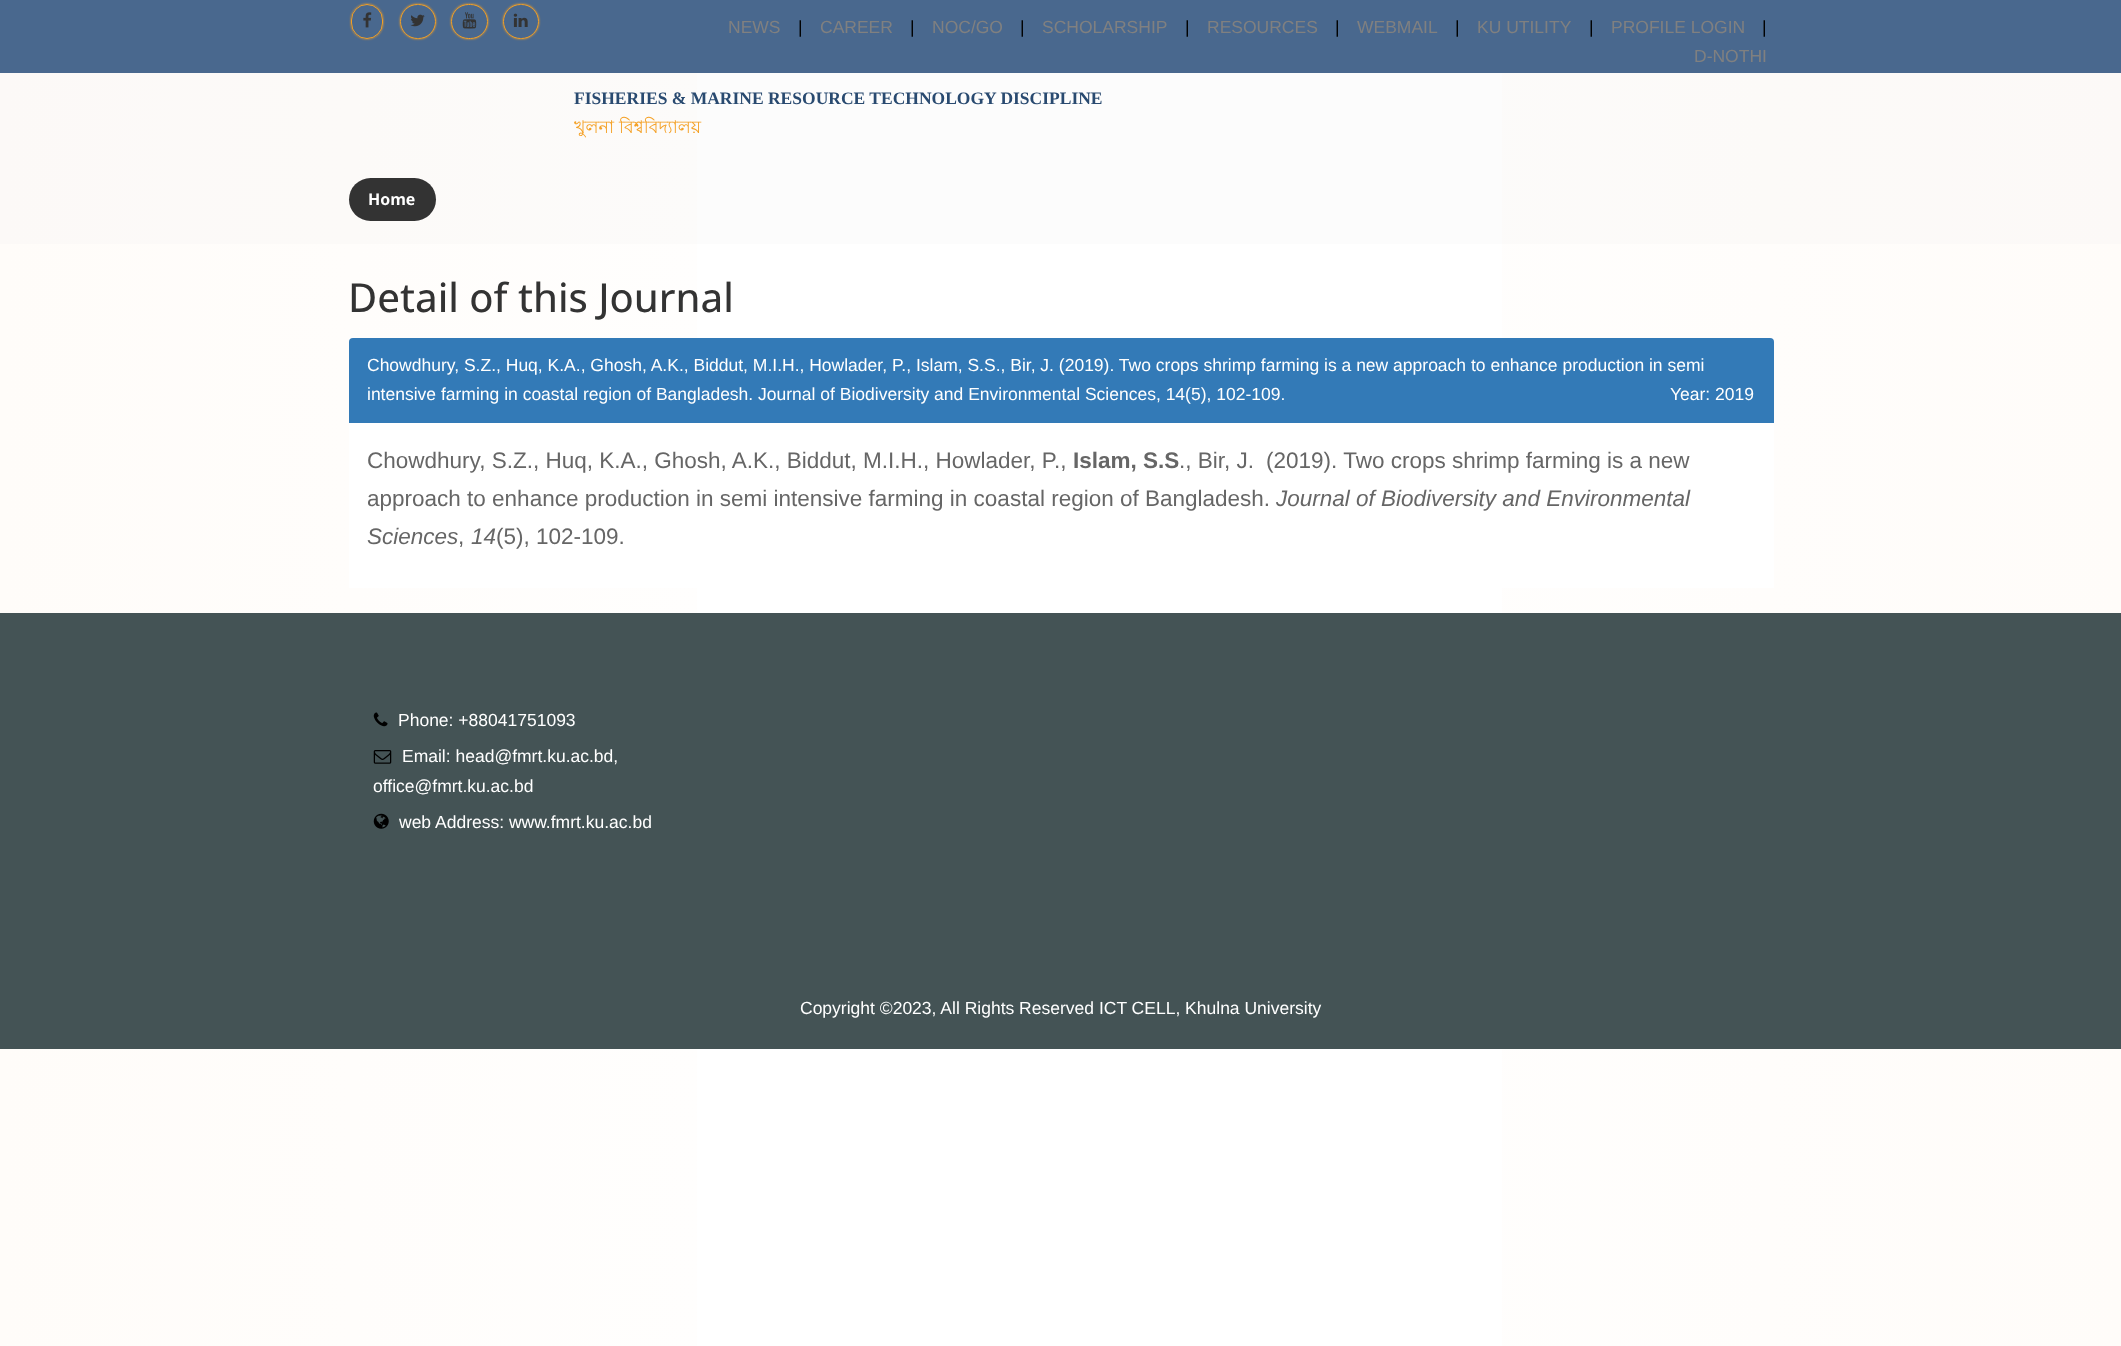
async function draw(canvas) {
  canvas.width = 2121;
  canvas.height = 1346;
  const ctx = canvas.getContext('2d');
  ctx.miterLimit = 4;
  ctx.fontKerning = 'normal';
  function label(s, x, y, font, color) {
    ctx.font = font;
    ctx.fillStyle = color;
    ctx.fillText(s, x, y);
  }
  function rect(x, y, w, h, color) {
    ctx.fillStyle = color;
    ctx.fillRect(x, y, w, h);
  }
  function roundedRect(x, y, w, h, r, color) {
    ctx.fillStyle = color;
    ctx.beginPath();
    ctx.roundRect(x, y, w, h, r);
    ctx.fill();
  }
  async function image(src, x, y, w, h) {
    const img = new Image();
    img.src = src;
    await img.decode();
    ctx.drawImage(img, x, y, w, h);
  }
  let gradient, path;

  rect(0, 0, 2121, 1346, '#fff');
  gradient = ctx.createLinearGradient(2121, 524, 0, 524);
  gradient.addColorStop(0, '#fffcf9');
  gradient.addColorStop(0.5, '#fff');
  ctx.fillStyle = gradient;
  ctx.fillRect(1502, 73, 619, 1273);
  gradient = ctx.createLinearGradient(0, 524, 2121, 524);
  gradient.addColorStop(0, '#fffcf9');
  gradient.addColorStop(0.5, '#fffcf900');
  ctx.fillStyle = gradient;
  ctx.fillRect(0, 73, 697, 1273);
  rect(0, 0, 2121, 73, '#49688e');
  ctx.save();
  path = new Path2D('M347 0H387V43H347ZM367 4C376 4 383 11 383 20V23C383 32 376 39 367 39C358 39 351 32 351 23V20C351 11 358 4 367 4Z');
  ctx.clip(path, 'evenodd');
  ctx.fillStyle = '#f4a024';
  ctx.filter = 'blur(1px)';
  ctx.beginPath();
  ctx.roundRect(351, 4, 32, 35, 16);
  ctx.fill();
  ctx.filter = 'none';
  ctx.restore();
  ctx.beginPath();
  ctx.roundRect(351.5, 4.5, 31, 34, 15.5);
  ctx.strokeStyle = '#f4a024';
  ctx.stroke();
  await image('assets/img1.png', 363, 12, 9, 16);
  ctx.save();
  path = new Path2D('M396 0H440V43H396ZM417.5 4H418.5C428 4 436 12 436 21.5C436 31 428 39 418.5 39H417.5C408 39 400 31 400 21.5C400 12 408 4 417.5 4Z');
  ctx.clip(path, 'evenodd');
  ctx.fillStyle = '#f4a024';
  ctx.filter = 'blur(1px)';
  ctx.beginPath();
  ctx.roundRect(400, 4, 36, 35, 17.5);
  ctx.fill();
  ctx.filter = 'none';
  ctx.restore();
  ctx.beginPath();
  ctx.roundRect(400.5, 4.5, 35, 34, 17);
  ctx.stroke();
  await image('assets/img2.png', 410, 14, 15, 13);
  ctx.save();
  path = new Path2D('M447 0H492V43H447ZM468.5 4H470.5C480 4 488 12 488 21.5C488 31 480 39 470.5 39H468.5C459 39 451 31 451 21.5C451 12 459 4 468.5 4Z');
  ctx.clip(path, 'evenodd');
  ctx.fillStyle = '#f4a024';
  ctx.filter = 'blur(1px)';
  ctx.beginPath();
  ctx.roundRect(451, 4, 37, 35, 17.5);
  ctx.fill();
  ctx.filter = 'none';
  ctx.restore();
  ctx.beginPath();
  ctx.roundRect(451.5, 4.5, 36, 34, 17);
  ctx.stroke();
  await image('assets/img3.png', 462, 12, 15, 17);
  ctx.save();
  path = new Path2D('M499 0H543V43H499ZM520.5 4H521.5C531 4 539 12 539 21.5C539 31 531 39 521.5 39H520.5C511 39 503 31 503 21.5C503 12 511 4 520.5 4Z');
  ctx.clip(path, 'evenodd');
  ctx.fillStyle = '#f4a024';
  ctx.filter = 'blur(1px)';
  ctx.beginPath();
  ctx.roundRect(503, 4, 36, 35, 17.5);
  ctx.fill();
  ctx.filter = 'none';
  ctx.restore();
  ctx.beginPath();
  ctx.roundRect(503.5, 4.5, 35, 34, 17);
  ctx.stroke();
  await image('assets/img4.png', 513, 13, 15, 14);
  label('NEWS', 728, 33, '17.5px Liberation Sans', '#808080');
  label('|', 798, 33, '17.5px Liberation Sans', '#000');
  label('CAREER', 820, 33, '17.5px Liberation Sans', '#808080');
  label('|', 910, 33, '17.5px Liberation Sans', '#000');
  label('NOC/GO', 932, 33, '17.5px Liberation Sans', '#808080');
  label('|', 1020, 33, '17.5px Liberation Sans', '#000');
  label('SCHOLARSHIP', 1042, 33, '17.5px Liberation Sans', '#808080');
  label('|', 1185, 33, '17.5px Liberation Sans', '#000');
  label('RESOURCES', 1207, 33, '17.5px Liberation Sans', '#808080');
  label('|', 1335, 33, '17.5px Liberation Sans', '#000');
  label('WEBMAIL', 1357, 33, '17.5px Liberation Sans', '#808080');
  label('|', 1455, 33, '17.5px Liberation Sans', '#000');
  label('KU UTILITY', 1477, 33, '17.5px Liberation Sans', '#808080');
  label('|', 1589, 33, '17.5px Liberation Sans', '#000');
  label('PROFILE LOGIN', 1611, 33, '17.5px Liberation Sans', '#808080');
  label('|', 1762, 33, '17.5px Liberation Sans', '#000');
  label('D-NOTHI', 1694, 62, '17.5px Liberation Sans', '#808080');
  rect(0, 73, 2121, 82, '#eeeeee2e');
  label('FISHERIES & MARINE RESOURCE TECHNOLOGY DISCIPLINE', 574, 104, 'bold 17.5px Liberation Serif', '#294a70');
  label('খুলনা বিশ্ববিদ্যালয়', 574, 133, '17.5px Lohit Bengali', '#f4a024');
  rect(0, 155, 2121, 89, '#eeeeee2e');
  roundedRect(349, 178, 87, 43, 21.5, '#333');
  label('Home', 368, 205, 'bold 16px Open Sans', '#fff');
  label('Detail of this Journal', 348, 312, '500 40px Open Sans', '#333');
  rect(349, 338, 1425, 250, '#fff');
  ctx.fillStyle = '#337ab7';
  ctx.beginPath();
  ctx.roundRect(349, 338, 1425, 85, [4, 4, 0, 0]);
  ctx.fill();
  label('Chowdhury, S.Z., Huq, K.A., Ghosh, A.K., Biddut, M.I.H., Howlader, P., Islam, S.S., Bir, J. (2019). Two crops shrimp farming is a new approach to enhance production in semi', 367, 371, '17.5px Liberation Sans', '#fff');
  label('intensive farming in coastal region of Bangladesh. Journal of Biodiversity and Environmental Sciences, 14(5), 102-109.', 367, 400, '17.5px Liberation Sans', '#fff');
  label('Year: 2019', 1670, 400, '17.5px Liberation Sans', '#fff');
  label('Chowdhury, S.Z., Huq, K.A., Ghosh, A.K., Biddut, M.I.H., Howlader, P.,', 367, 468, '22.5px Liberation Sans', '#666');
  label('Islam, S.S', 1073, 468, 'bold 22.5px Liberation Sans', '#666');
  label('., Bir, J.', 1179, 468, '22.5px Liberation Sans', '#666');
  label('(2019). Two crops shrimp farming is a new', 1266, 468, '22.5px Liberation Sans', '#666');
  label('approach to enhance production in semi intensive farming in coastal region of Bangladesh.', 367, 506, '22.5px Liberation Sans', '#666');
  label('Journal of Biodiversity and Environmental', 1276, 506, 'italic 22.5px Liberation Sans', '#666');
  label('Sciences', 367, 544, 'italic 22.5px Liberation Sans', '#666');
  label(',', 458, 544, '22.5px Liberation Sans', '#666');
  label('14', 471, 544, 'italic 22.5px Liberation Sans', '#666');
  label('(5), 102-109.', 496, 544, '22.5px Liberation Sans', '#666');
  rect(0, 613, 2121, 436, '#445355');
  await image('assets/img5.png', 373, 712, 15, 15);
  label('Phone: +88041751093', 398, 726, '17.5px Liberation Sans', '#fff');
  await image('assets/img6.png', 373, 750, 19, 14);
  label('Email: head@fmrt.ku.ac.bd,', 402, 762, '17.5px Liberation Sans', '#fff');
  label('office@fmrt.ku.ac.bd', 373, 792, '17.5px Liberation Sans', '#fff');
  await image('assets/img7.png', 373, 813, 16, 16);
  label('web Address: www.fmrt.ku.ac.bd', 399, 828, '17.5px Liberation Sans', '#fff');
  label('Copyright ©2023, All Rights Reserved ICT CELL, Khulna University', 800, 1014, '17.5px Liberation Sans', '#fff');
}

draw(document.querySelector('canvas'));
